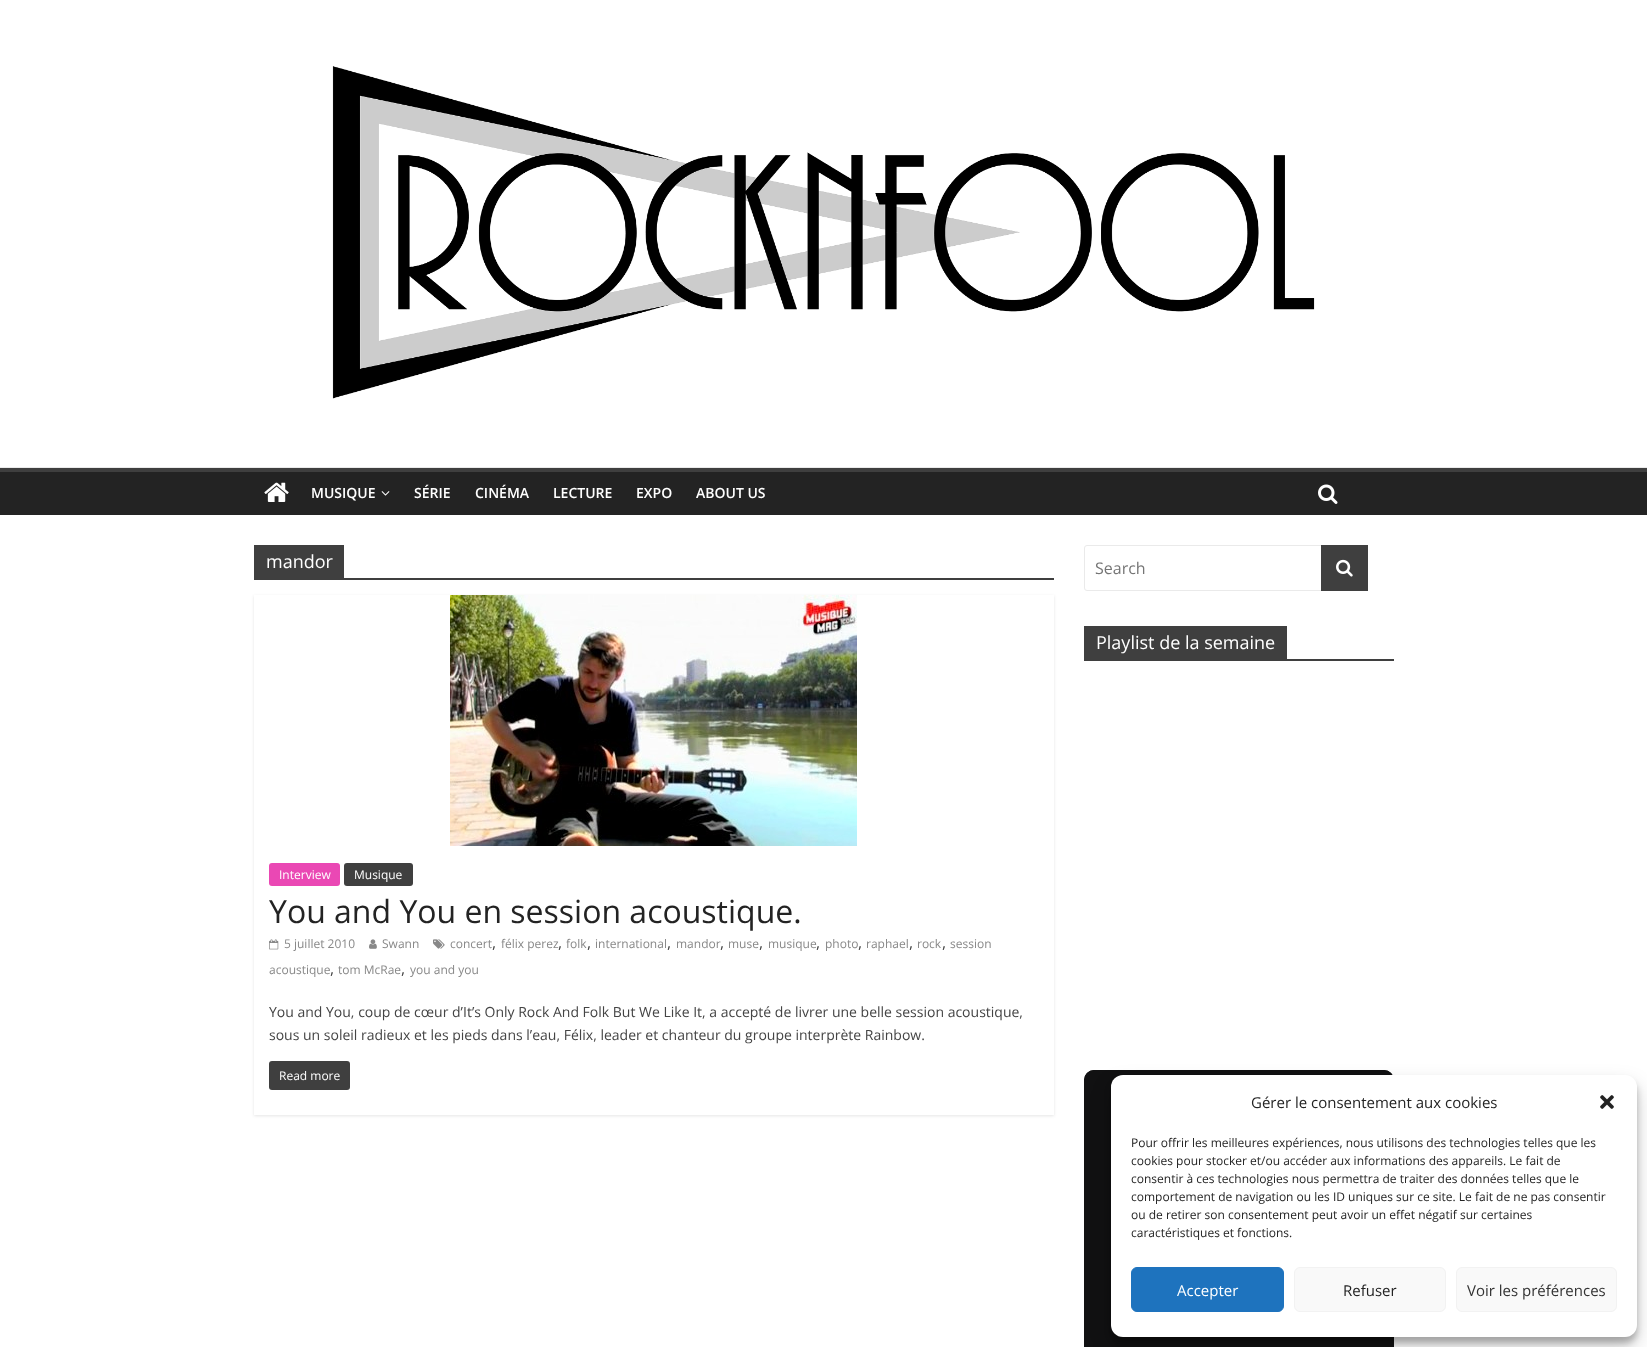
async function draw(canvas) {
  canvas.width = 1647;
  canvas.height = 1347;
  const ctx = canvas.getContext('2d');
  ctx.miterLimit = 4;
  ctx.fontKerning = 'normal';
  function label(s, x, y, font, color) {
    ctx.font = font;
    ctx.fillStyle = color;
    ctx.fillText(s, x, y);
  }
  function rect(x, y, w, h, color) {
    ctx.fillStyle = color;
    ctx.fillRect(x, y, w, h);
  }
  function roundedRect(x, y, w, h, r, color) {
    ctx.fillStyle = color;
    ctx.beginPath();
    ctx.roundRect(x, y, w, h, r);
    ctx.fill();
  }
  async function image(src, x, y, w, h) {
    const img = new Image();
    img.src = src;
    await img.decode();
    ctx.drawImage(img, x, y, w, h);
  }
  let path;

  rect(0, 0, 1647, 1347, '#fff');
  await image('assets/img1.png', 332, 66, 983, 333);
  rect(0, 467, 1647, 1, '#eaeaea');
  rect(0, 472, 1647, 43, '#232323');
  rect(0, 468, 1647, 4, '#3f3f3f');
  await image('assets/img2.png', 264, 482, 25, 20);
  label('MUSIQUE', 311, 498, '600 14px Open Sans', '#fff');
  await image('assets/img3.png', 381, 491, 9, 5);
  label('SÉRIE', 414, 498, '600 14px Open Sans', '#fff');
  label('CINÉMA', 475, 498, '600 14px Open Sans', '#fff');
  label('LECTURE', 553, 498, '600 14px Open Sans', '#fff');
  label('EXPO', 636, 498, '600 14px Open Sans', '#fff');
  label('ABOUT US', 696, 498, '600 14px Open Sans', '#fff');
  await image('assets/img4.png', 1318, 484, 20, 20);
  rect(254, 578, 800, 2, '#3f3f3f');
  rect(254, 545, 90, 33, '#3f3f3f');
  label('mandor', 266, 568, '18px Open Sans', '#fff');
  ctx.save();
  path = new Path2D('M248 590H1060V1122H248ZM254 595H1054V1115H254Z');
  ctx.clip(path, 'evenodd');
  ctx.fillStyle = '#0000001a';
  ctx.filter = 'blur(1.5px)';
  ctx.beginPath();
  ctx.rect(254, 596, 800, 520);
  ctx.fill();
  ctx.filter = 'none';
  ctx.restore();
  await image('assets/img5.png', 450, 595, 407, 251);
  roundedRect(269, 863, 71, 23, 3, '#ea48b4');
  label('Interview', 279, 879, '12px Open Sans', '#fff');
  roundedRect(344, 863, 69, 23, 3, '#3f3f3f');
  label('Musique', 354, 879, '12px Open Sans', '#fff');
  label('You and You en session acoustique.', 269, 923, '32px Open Sans', '#232323');
  await image('assets/img6.png', 433, 939, 12, 10);
  label('concert', 450, 948, '12px Open Sans', '#888');
  label(',', 492, 948, '16px Open Sans', '#444');
  label('félix perez', 501, 948, '12px Open Sans', '#888');
  label(',', 558, 948, '16px Open Sans', '#444');
  label('folk', 566, 948, '12px Open Sans', '#888');
  label(',', 587, 948, '16px Open Sans', '#444');
  label('international', 595, 948, '12px Open Sans', '#888');
  label(',', 667, 948, '16px Open Sans', '#444');
  label('mandor', 676, 948, '12px Open Sans', '#888');
  label(',', 720, 948, '16px Open Sans', '#444');
  label('muse', 728, 948, '12px Open Sans', '#888');
  label(',', 759, 948, '16px Open Sans', '#444');
  label('musique', 768, 948, '12px Open Sans', '#888');
  label(',', 816, 948, '16px Open Sans', '#444');
  label('photo', 825, 948, '12px Open Sans', '#888');
  label(',', 858, 948, '16px Open Sans', '#444');
  label('raphael', 866, 948, '12px Open Sans', '#888');
  label(',', 909, 948, '16px Open Sans', '#444');
  label('rock', 917, 948, '12px Open Sans', '#888');
  label(',', 942, 948, '16px Open Sans', '#444');
  label('session', 950, 948, '12px Open Sans', '#888');
  label('acoustique', 269, 974, '12px Open Sans', '#888');
  label(',', 330, 974, '16px Open Sans', '#444');
  label('tom McRae', 338, 974, '12px Open Sans', '#888');
  label(',', 401, 974, '16px Open Sans', '#444');
  label('you and you', 410, 974, '12px Open Sans', '#888');
  await image('assets/img7.png', 269, 939, 10, 11);
  label('5 juillet 2010', 284, 948, '12px Open Sans', '#888');
  await image('assets/img8.png', 369, 939, 8, 10);
  label('Swann', 382, 948, '12px Open Sans', '#888');
  label('You and You, coup de cœur d’It’s Only Rock And Folk But We Like It, a accepté de livrer une belle session acoustique,', 269, 1017, '14px Open Sans', '#444');
  label('sous un soleil radieux et les pieds dans l’eau, Félix, leader et chanteur du groupe interprète Rainbow.', 269, 1040, '14px Open Sans', '#444');
  roundedRect(269, 1061, 81, 29, 3, '#3f3f3f');
  label('Read more', 279, 1080, '12px Open Sans', '#fff');
  ctx.beginPath();
  ctx.roundRect(1084.5, 545.5, 251, 45, 2.5);
  ctx.strokeStyle = '#eaeaea';
  ctx.stroke();
  label('Search', 1095, 574, '16px Open Sans', '#757575');
  rect(1321, 545, 47, 46, '#3f3f3f');
  await image('assets/img9.png', 1336, 559, 17, 18);
  rect(1084, 659, 310, 2, '#3f3f3f');
  rect(1084, 626, 203, 33, '#3f3f3f');
  label('Playlist de la semaine', 1096, 649, '18px Open Sans', '#fff');
  await image('assets/img10.png', 1084, 1070, 310, 277);
  ctx.fillStyle = '#0000003b';
  ctx.filter = 'blur(3px)';
  ctx.beginPath();
  ctx.roundRect(1111, 1081, 526, 262, 12);
  ctx.fill();
  ctx.filter = 'none';
  ctx.fillStyle = '#00000030';
  ctx.filter = 'blur(10px)';
  ctx.beginPath();
  ctx.roundRect(1111, 1085, 526, 262, 12);
  ctx.fill();
  ctx.filter = 'none';
  roundedRect(1111, 1075, 526, 262, 12, '#fff');
  label('Gérer le consentement aux cookies', 1251, 1108, '15px Open Sans', '#232323');
  await image('assets/img11.png', 1600, 1095, 14, 14);
  label('Pour offrir les meilleures expériences, nous utilisons des technologies telles que les', 1131, 1147, '12px Open Sans', '#232323');
  label('cookies pour stocker et/ou accéder aux informations des appareils. Le fait de', 1131, 1165, '12px Open Sans', '#232323');
  label('consentir à ces technologies nous permettra de traiter des données telles que le', 1131, 1183, '12px Open Sans', '#232323');
  label('comportement de navigation ou les ID uniques sur ce site. Le fait de ne pas consentir', 1131, 1201, '12px Open Sans', '#232323');
  label('ou de retirer son consentement peut avoir un effet négatif sur certaines', 1131, 1219, '12px Open Sans', '#232323');
  label('caractéristiques et fonctions.', 1131, 1237, '12px Open Sans', '#232323');
  ctx.fillStyle = '#1e73be';
  ctx.beginPath();
  ctx.roundRect(1131.5, 1267.5, 152, 44, 5.5);
  ctx.fill();
  ctx.strokeStyle = '#1e73be';
  ctx.stroke();
  label('Accepter', 1177, 1296, '15px Open Sans', '#fff');
  ctx.fillStyle = '#f9f9f9';
  ctx.beginPath();
  ctx.roundRect(1294.5, 1267.5, 151, 44, 5.5);
  ctx.fill();
  ctx.strokeStyle = '#f2f2f2';
  ctx.stroke();
  label('Refuser', 1343, 1296, '15px Open Sans', '#232323');
  ctx.fillStyle = '#f9f9f9';
  ctx.beginPath();
  ctx.roundRect(1456.5, 1267.5, 160, 44, 5.5);
  ctx.fill();
  ctx.stroke();
  label('Voir les préférences', 1467, 1296, '15px Open Sans', '#333');
}

draw(document.querySelector('canvas'));
